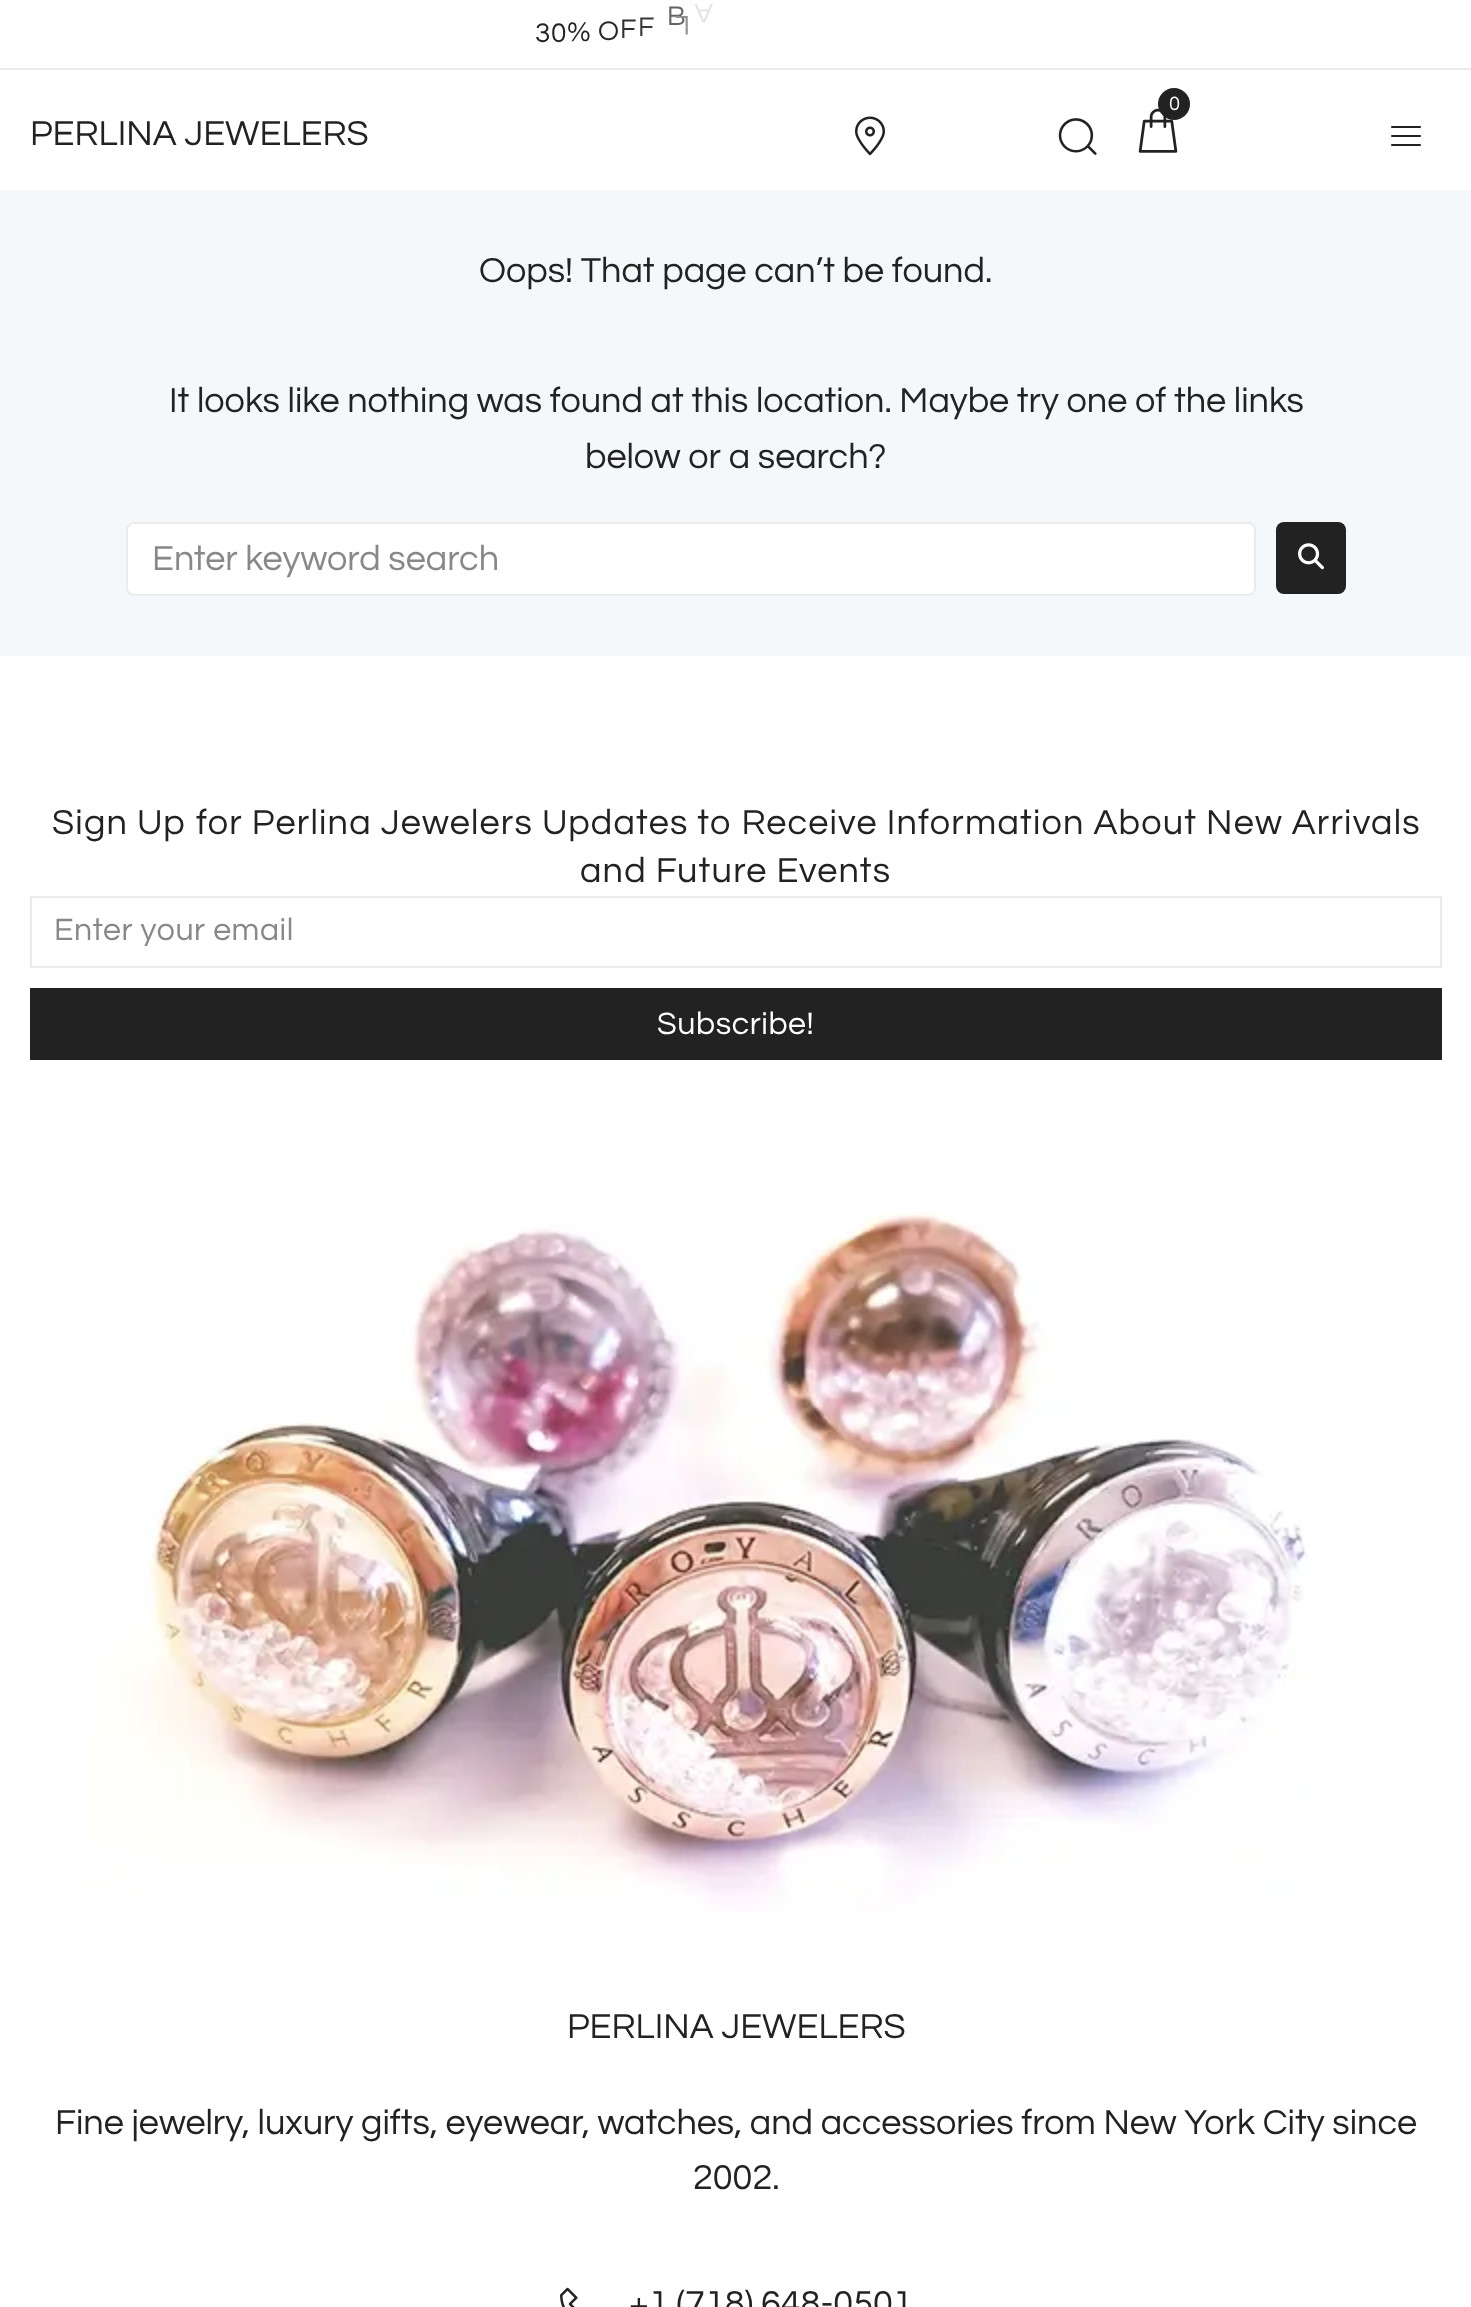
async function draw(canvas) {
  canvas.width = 1471;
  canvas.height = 2307;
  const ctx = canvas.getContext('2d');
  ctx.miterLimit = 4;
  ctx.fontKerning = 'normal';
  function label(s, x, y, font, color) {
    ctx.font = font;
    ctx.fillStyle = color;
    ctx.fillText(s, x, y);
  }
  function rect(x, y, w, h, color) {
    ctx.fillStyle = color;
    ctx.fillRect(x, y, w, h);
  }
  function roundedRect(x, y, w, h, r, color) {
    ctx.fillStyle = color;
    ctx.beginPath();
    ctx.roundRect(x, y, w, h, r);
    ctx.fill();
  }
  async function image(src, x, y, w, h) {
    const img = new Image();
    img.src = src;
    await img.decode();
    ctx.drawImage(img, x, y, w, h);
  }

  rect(0, 0, 1471, 2307, '#f5f8fa');
  rect(0, 0, 1471, 68, '#fff');
  rect(0, 68, 1471, 2, '#ebebeb');
  ctx.letterSpacing = '-13px';
  label('B', 667, 25, '28px Questrial', '#656565');
  ctx.letterSpacing = '0px';
  ctx.fillStyle = '#e4e4e4';
  ctx.save();
  ctx.translate(713, 4);
  ctx.rotate(180 * Math.PI / 180);
  ctx.fillText('A', 0, 0);
  ctx.restore();
  ctx.letterSpacing = '1px';
  label('3', 535, 42, '28px Questrial', '#222');
  label('0', 551, 42, '28px Questrial', '#222');
  label('%', 567, 41, '28px Questrial', '#222');
  ctx.letterSpacing = '0px';
  label('O', 598, 40, '28px Questrial', '#292929');
  label('F', 620, 38, '28px Questrial', '#2f2f2f');
  ctx.letterSpacing = '-1px';
  label('F', 638, 36, '28px Questrial', '#383838');
  ctx.letterSpacing = '-9px';
  ctx.fillStyle = '#909090';
  ctx.save();
  ctx.translate(690, 16);
  ctx.rotate(180 * Math.PI / 180);
  ctx.fillText('L', 0, 0);
  ctx.restore();
  rect(0, 70, 1471, 120, '#fff');
  await image('assets/img1.png', 1138, 108, 40, 45);
  ctx.fillStyle = '#222';
  ctx.beginPath();
  ctx.arc(1174, 104, 16, 0, 2 * Math.PI);
  ctx.fill();
  ctx.letterSpacing = '0px';
  label('0', 1169, 110, '20px Questrial', '#fff');
  await image('assets/img2.png', 1058, 118, 39, 37);
  label('PERLINA JEWELERS', 30, 145, '36px Questrial', '#222');
  await image('assets/img3.png', 855, 116, 30, 40);
  await image('assets/img4.png', 1391, 126, 30, 20);
  label('Oops! That page can’t be found.', 479, 282, '36px Questrial', '#222');
  label('It looks like nothing was found at this location. Maybe try one of the links', 169, 412, '36px Questrial', '#222');
  label('below or a search?', 585, 468, '36px Questrial', '#222');
  ctx.fillStyle = '#fff';
  ctx.beginPath();
  ctx.roundRect(127, 523, 1128, 72, 7);
  ctx.fill();
  ctx.strokeStyle = '#ebebeb';
  ctx.lineWidth = 2;
  ctx.stroke();
  label('Enter keyword search', 152, 570, '36px Questrial', '#888');
  roundedRect(1276, 522, 70, 72, 8, '#222');
  await image('assets/img5.png', 1298, 543, 26, 27);
  rect(0, 656, 1471, 1651, '#fff');
  ctx.letterSpacing = '1.2px';
  label('Sign Up for Perlina Jewelers Updates to Receive Information About New Arrivals', 52, 834, '36px Questrial', '#222');
  label('and Future Events', 580, 882, '36px Questrial', '#222');
  ctx.strokeRect(31, 897, 1410, 70);
  ctx.save();
  ctx.beginPath();
  ctx.rect(54, 914, 1366, 32);
  ctx.clip();
  ctx.letterSpacing = '0.6px';
  label('Enter your email', 54, 940, '32px Questrial', '#888');
  ctx.restore();
  rect(30, 988, 1412, 72, '#222');
  ctx.letterSpacing = '0.6px';
  label('Subscribe!', 657, 1034, '32px Questrial', '#fff');
  await image('assets/img6.png', 86, 1211, 1224, 701);
  ctx.letterSpacing = '0px';
  label('PERLINA JEWELERS', 567, 2038, '36px Questrial', '#222');
  label('Fine jewelry, luxury gifts, eyewear, watches, and accessories from New York City since', 55, 2134, '36px Questrial', '#222');
  label('2002.', 693, 2189, '36px Questrial', '#222');
  await image('assets/img7.png', 560, 2287, 18, 20);
  label('+1 (718) 648-0501', 629, 2315, '36px Questrial', '#222');
}

draw(document.querySelector('canvas'));
